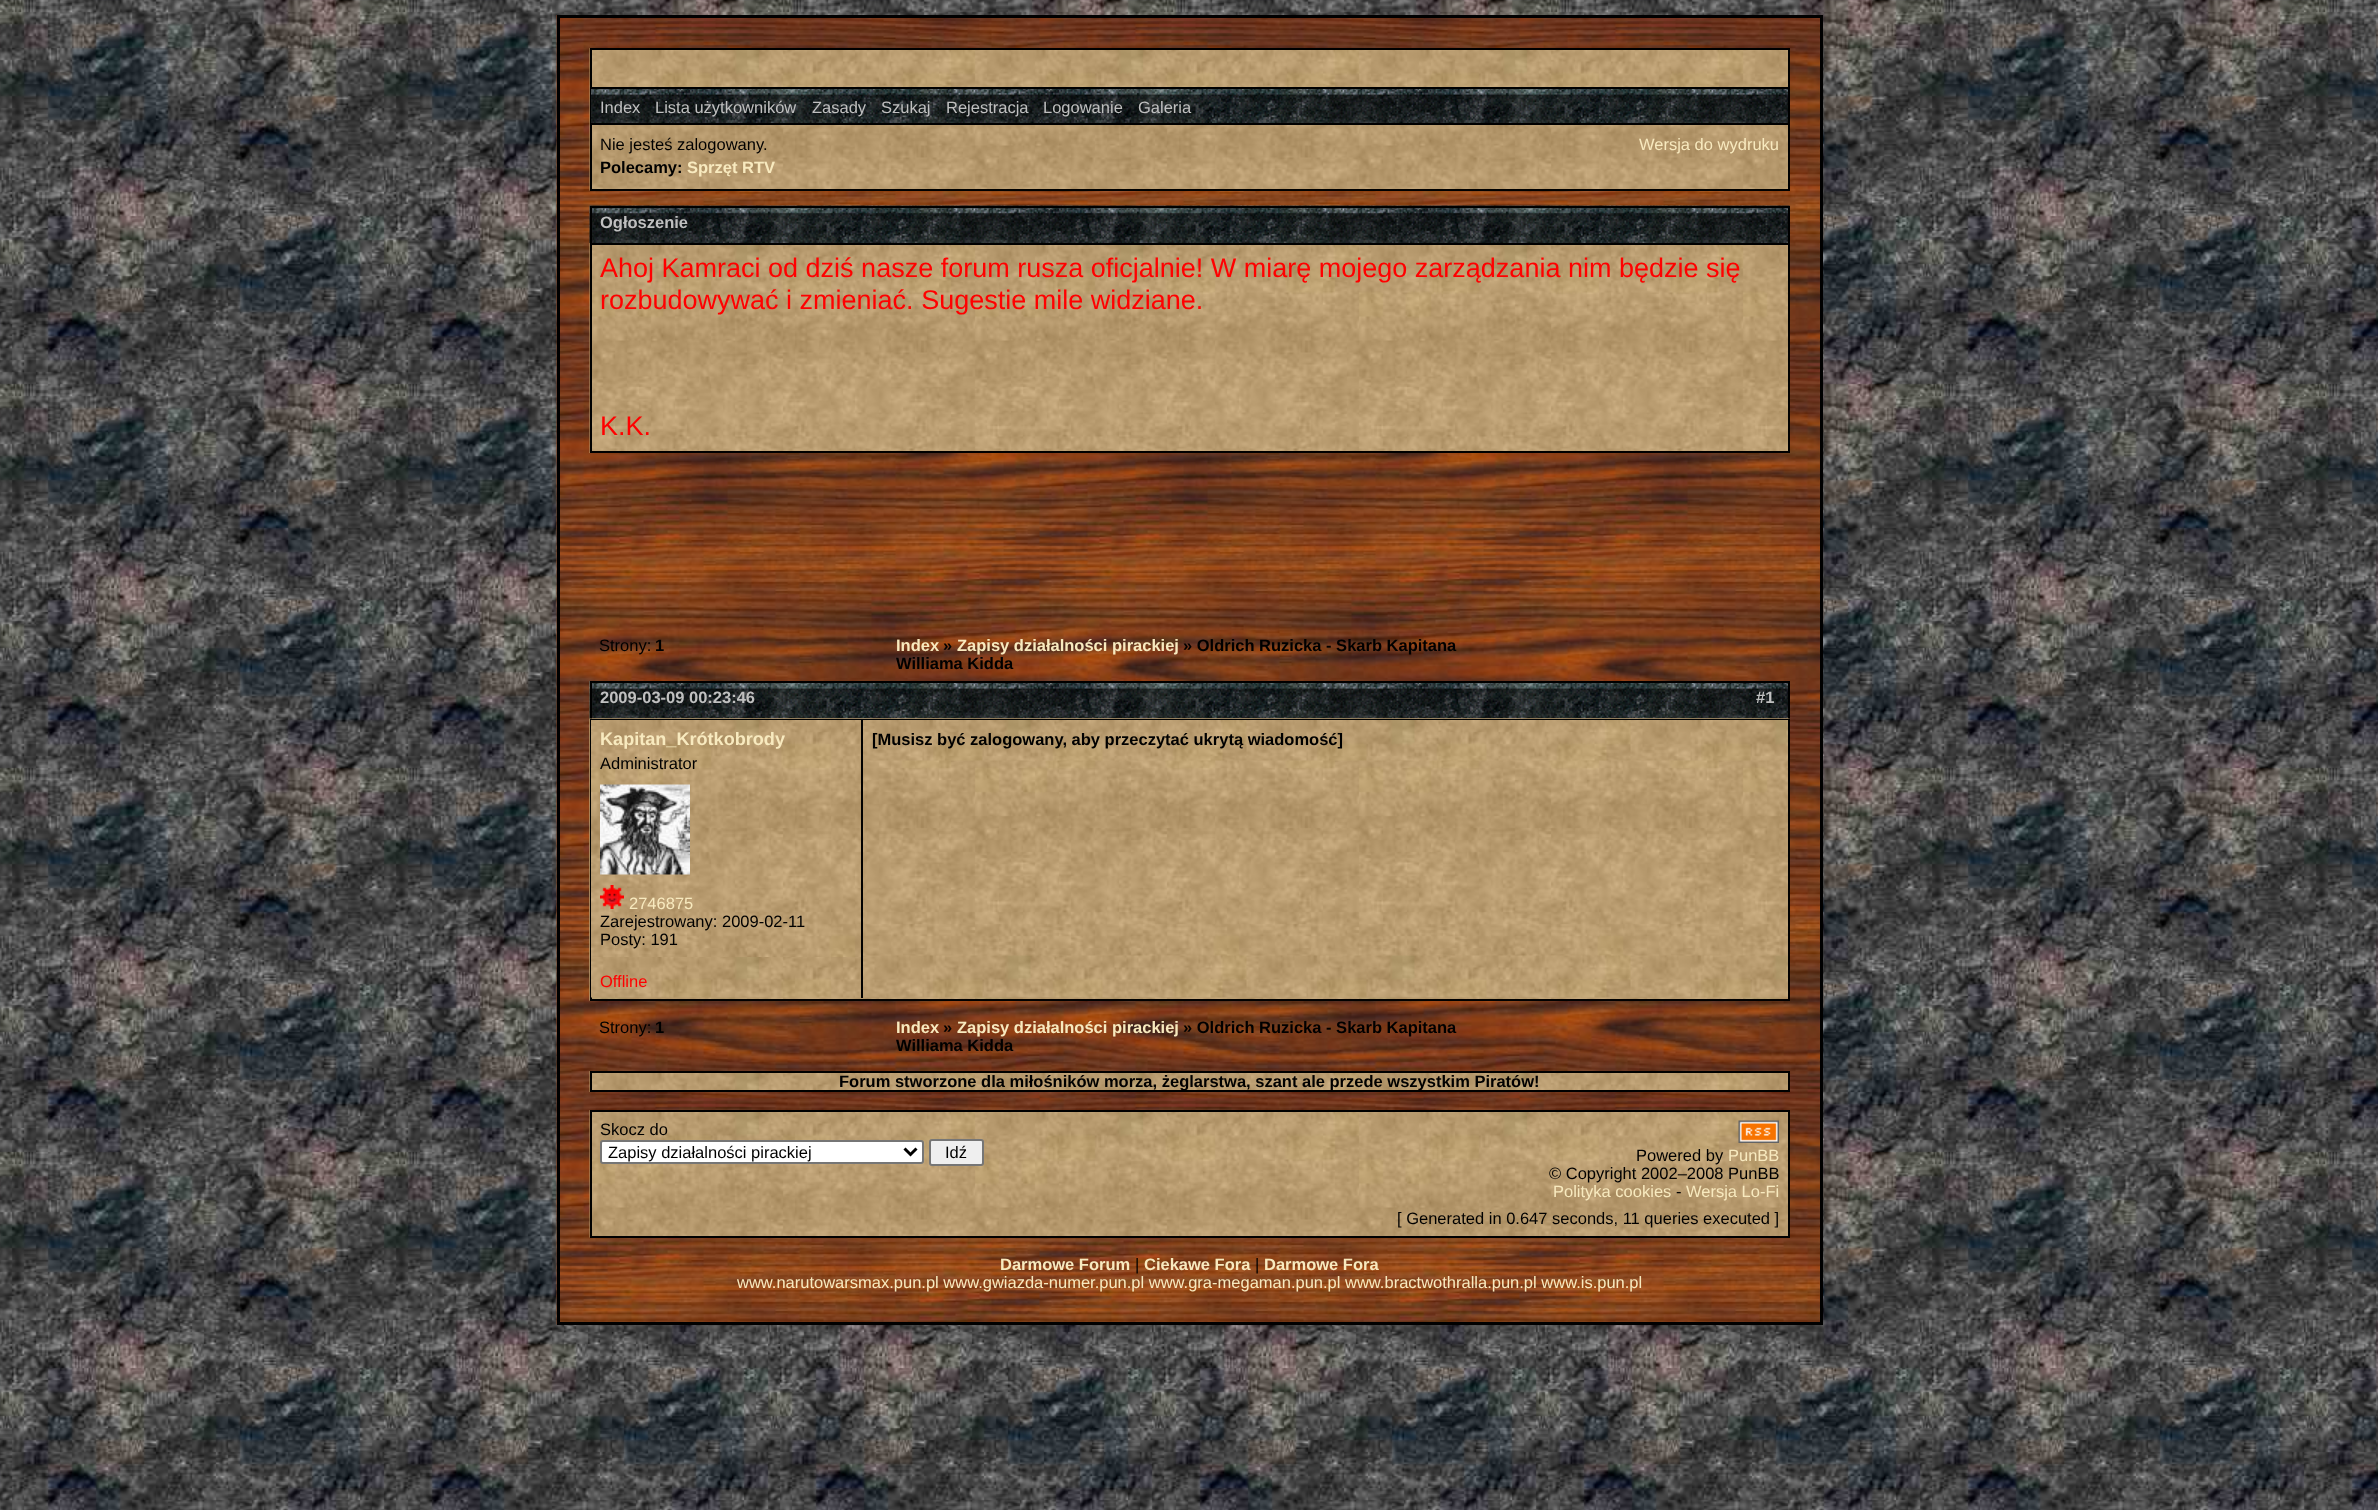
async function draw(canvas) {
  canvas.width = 2378;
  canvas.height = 1510;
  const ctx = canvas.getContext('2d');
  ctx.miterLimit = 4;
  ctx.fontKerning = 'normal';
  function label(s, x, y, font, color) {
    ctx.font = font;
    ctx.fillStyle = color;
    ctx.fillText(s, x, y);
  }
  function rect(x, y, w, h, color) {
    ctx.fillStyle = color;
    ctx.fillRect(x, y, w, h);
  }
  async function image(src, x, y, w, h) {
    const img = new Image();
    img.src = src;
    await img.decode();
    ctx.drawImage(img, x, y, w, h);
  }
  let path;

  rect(0, 0, 2378, 1510, '#fff');
  await image('assets/img1.png', 0, 0, 2378, 1510);
  await image('assets/img2.png', 556, 15, 1264, 1310);
  ctx.strokeStyle = '#000';
  ctx.lineWidth = 3;
  ctx.strokeRect(558.5, 16.5, 1263, 1307);
  await image('assets/img3.png', 589, 48, 1199, 143);
  ctx.lineWidth = 2;
  ctx.strokeRect(591, 49, 1198, 141);
  await image('assets/img4.png', 591, 89, 1197, 34);
  rect(591, 87, 1197, 2, '#000');
  rect(591, 123, 1197, 2, '#000');
  label('Index', 600, 113, '16.5px Liberation Sans', '#c0c0c0');
  label('Lista użytkowników', 655, 113, '16.5px Liberation Sans', '#c0c0c0');
  label('Zasady', 812, 113, '16.5px Liberation Sans', '#c0c0c0');
  label('Szukaj', 881, 113, '16.5px Liberation Sans', '#c0c0c0');
  label('Rejestracja', 946, 113, '16.5px Liberation Sans', '#c0c0c0');
  label('Logowanie', 1043, 113, '16.5px Liberation Sans', '#c0c0c0');
  label('Galeria', 1138, 113, '16.5px Liberation Sans', '#c0c0c0');
  label('Nie jesteś zalogowany.', 600, 150, '16.5px Liberation Sans', '#000');
  label('Polecamy:', 600, 173, 'bold 16.5px Liberation Sans', '#000');
  label('Sprzęt RTV', 687, 173, 'bold 16.5px Liberation Sans', '#f8eabf');
  label('Wersja do wydruku', 1639, 150, '16.5px Liberation Sans', '#f8eabf');
  await image('assets/img5.png', 589, 205, 1201, 38);
  rect(590, 206, 1200, 2, '#000');
  rect(1788, 206, 2, 37, '#000');
  rect(590, 206, 2, 37, '#000');
  label('Ogłoszenie', 600, 228, 'bold 16.5px Liberation Sans', '#c0c0c0');
  await image('assets/img6.png', 589, 243, 1199, 210);
  ctx.strokeRect(591, 244, 1198, 208);
  label('Ahoj Kamraci od dziś nasze forum rusza oficjalnie! W miarę mojego zarządzania nim będzie się', 600, 277, '27px Liberation Sans', '#f00');
  label('rozbudowywać i zmieniać. Sugestie mile widziane.', 600, 309, '27px Liberation Sans', '#f00');
  label('K.K.', 600, 435, '27px Liberation Sans', '#f00');
  label('Strony:', 599, 651, '16.5px Liberation Sans', '#000');
  label('1', 655, 651, 'bold 16.5px Liberation Sans', '#000');
  label('Index', 896, 651, 'bold 16.5px Liberation Sans', '#f8eabf');
  label('»', 943, 651, 'bold 16.5px Liberation Sans', '#000');
  label('Zapisy działalności pirackiej', 957, 651, 'bold 16.5px Liberation Sans', '#f8eabf');
  label('» Oldrich Ruzicka - Skarb Kapitana', 1183, 651, 'bold 16.5px Liberation Sans', '#000');
  label('Williama Kidda', 896, 669, 'bold 16.5px Liberation Sans', '#000');
  await image('assets/img7.png', 589, 681, 1199, 320);
  await image('assets/img8.png', 589, 681, 1199, 38);
  rect(590, 681, 1200, 2, '#000');
  rect(1788, 681, 2, 38, '#000');
  rect(590, 681, 2, 38, '#000');
  label('2009-03-09 00:23:46', 600, 703, 'bold 16.5px Liberation Sans', '#c0c0c0');
  label('#1', 1756, 703, 'bold 16.5px Liberation Sans', '#c0c0c0');
  await image('assets/img9.png', 589, 718, 1201, 283);
  ctx.strokeRect(591, 720, 1198, 280);
  await image('assets/img10.png', 591, 720, 270, 237);
  label('Kapitan_Krótkobrody', 600, 745, 'bold 18.1px Liberation Sans', '#f8eabf');
  label('Administrator', 600, 769, '16.5px Liberation Sans', '#000');
  await image('assets/img11.png', 600, 784, 90, 91);
  await image('assets/img12.png', 600, 885, 24, 24);
  label('2746875', 629, 909, '16.5px Liberation Sans', '#f8eabf');
  label('Zarejestrowany: 2009-02-11', 600, 927, '16.5px Liberation Sans', '#000');
  label('Posty: 191', 600, 945, '16.5px Liberation Sans', '#000');
  await image('assets/img13.png', 863, 955, 925, 43);
  rect(861, 720, 2, 278, '#000');
  await image('assets/img14.png', 863, 720, 925, 41);
  label('[Musisz być zalogowany, aby przeczytać ukrytą wiadomość]', 872, 745, 'bold 16.5px Liberation Sans', '#000');
  await image('assets/img15.png', 591, 957, 270, 41);
  label('Offline', 600, 987, '16.5px Liberation Sans', '#f00');
  label('Strony:', 599, 1033, '16.5px Liberation Sans', '#000');
  label('1', 655, 1033, 'bold 16.5px Liberation Sans', '#000');
  label('Index', 896, 1033, 'bold 16.5px Liberation Sans', '#f8eabf');
  label('»', 943, 1033, 'bold 16.5px Liberation Sans', '#000');
  label('Zapisy działalności pirackiej', 957, 1033, 'bold 16.5px Liberation Sans', '#f8eabf');
  label('» Oldrich Ruzicka - Skarb Kapitana', 1183, 1033, 'bold 16.5px Liberation Sans', '#000');
  label('Williama Kidda', 896, 1051, 'bold 16.5px Liberation Sans', '#000');
  await image('assets/img16.png', 589, 1071, 1199, 21);
  ctx.strokeRect(591, 1072, 1198, 19);
  label('Forum stworzone dla miłośników morza, żeglarstwa, szant ale przede wszystkim Piratów!', 839, 1087, 'bold 16.5px Liberation Sans', '#000');
  await image('assets/img17.png', 589, 1110, 1199, 128);
  ctx.strokeRect(591, 1111, 1198, 126);
  label('Skocz do', 600, 1135, '16.5px Liberation Sans', '#000');
  ctx.fillStyle = '#fff';
  ctx.beginPath();
  ctx.roundRect(601, 1141, 322, 22, 2);
  ctx.fill();
  ctx.strokeStyle = '#767676';
  ctx.stroke();
  path = new Path2D('M904.5 1148.5L910.5 1154.5L916.5 1148.5');
  ctx.strokeStyle = '#000';
  ctx.lineWidth = 3;
  ctx.stroke(path);
  label('Zapisy działalności pirackiej', 608, 1158, '16.5px Liberation Sans', '#000');
  ctx.fillStyle = '#efefef';
  ctx.beginPath();
  ctx.roundRect(930, 1140, 53, 25, 2);
  ctx.fill();
  ctx.strokeStyle = '#767676';
  ctx.lineWidth = 2;
  ctx.stroke();
  label('Idź', 945, 1158, '16.5px Liberation Sans', '#000');
  await image('assets/img18.png', 1738, 1120, 41, 23);
  label('Powered by', 1636, 1161, '16.5px Liberation Sans', '#000');
  label('PunBB', 1728, 1161, '16.5px Liberation Sans', '#f8eabf');
  label('© Copyright 2002–2008 PunBB', 1549, 1179, '16.5px Liberation Sans', '#000');
  label('Polityka cookies', 1553, 1197, '16.5px Liberation Sans', '#f8eabf');
  label('-', 1676, 1197, '16.5px Liberation Sans', '#000');
  label('Wersja Lo-Fi', 1686, 1197, '16.5px Liberation Sans', '#f8eabf');
  label('[ Generated in 0.647 seconds, 11 queries executed ]', 1397, 1224, '16.5px Liberation Sans', '#000');
  label('Darmowe Forum', 1000, 1270, 'bold 16.5px Liberation Sans', '#f8eabf');
  label('|', 1135, 1270, '16.5px Liberation Sans', '#000');
  label('Ciekawe Fora', 1144, 1270, 'bold 16.5px Liberation Sans', '#f8eabf');
  label('|', 1255, 1270, '16.5px Liberation Sans', '#000');
  label('Darmowe Fora', 1264, 1270, 'bold 16.5px Liberation Sans', '#f8eabf');
  label('www.narutowarsmax.pun.pl www.gwiazda-numer.pun.pl www.gra-megaman.pun.pl www.bractwothralla.pun.pl www.is.pun.pl', 737, 1288, '16.5px Liberation Sans', '#f8eabf');
}

draw(document.querySelector('canvas'));
